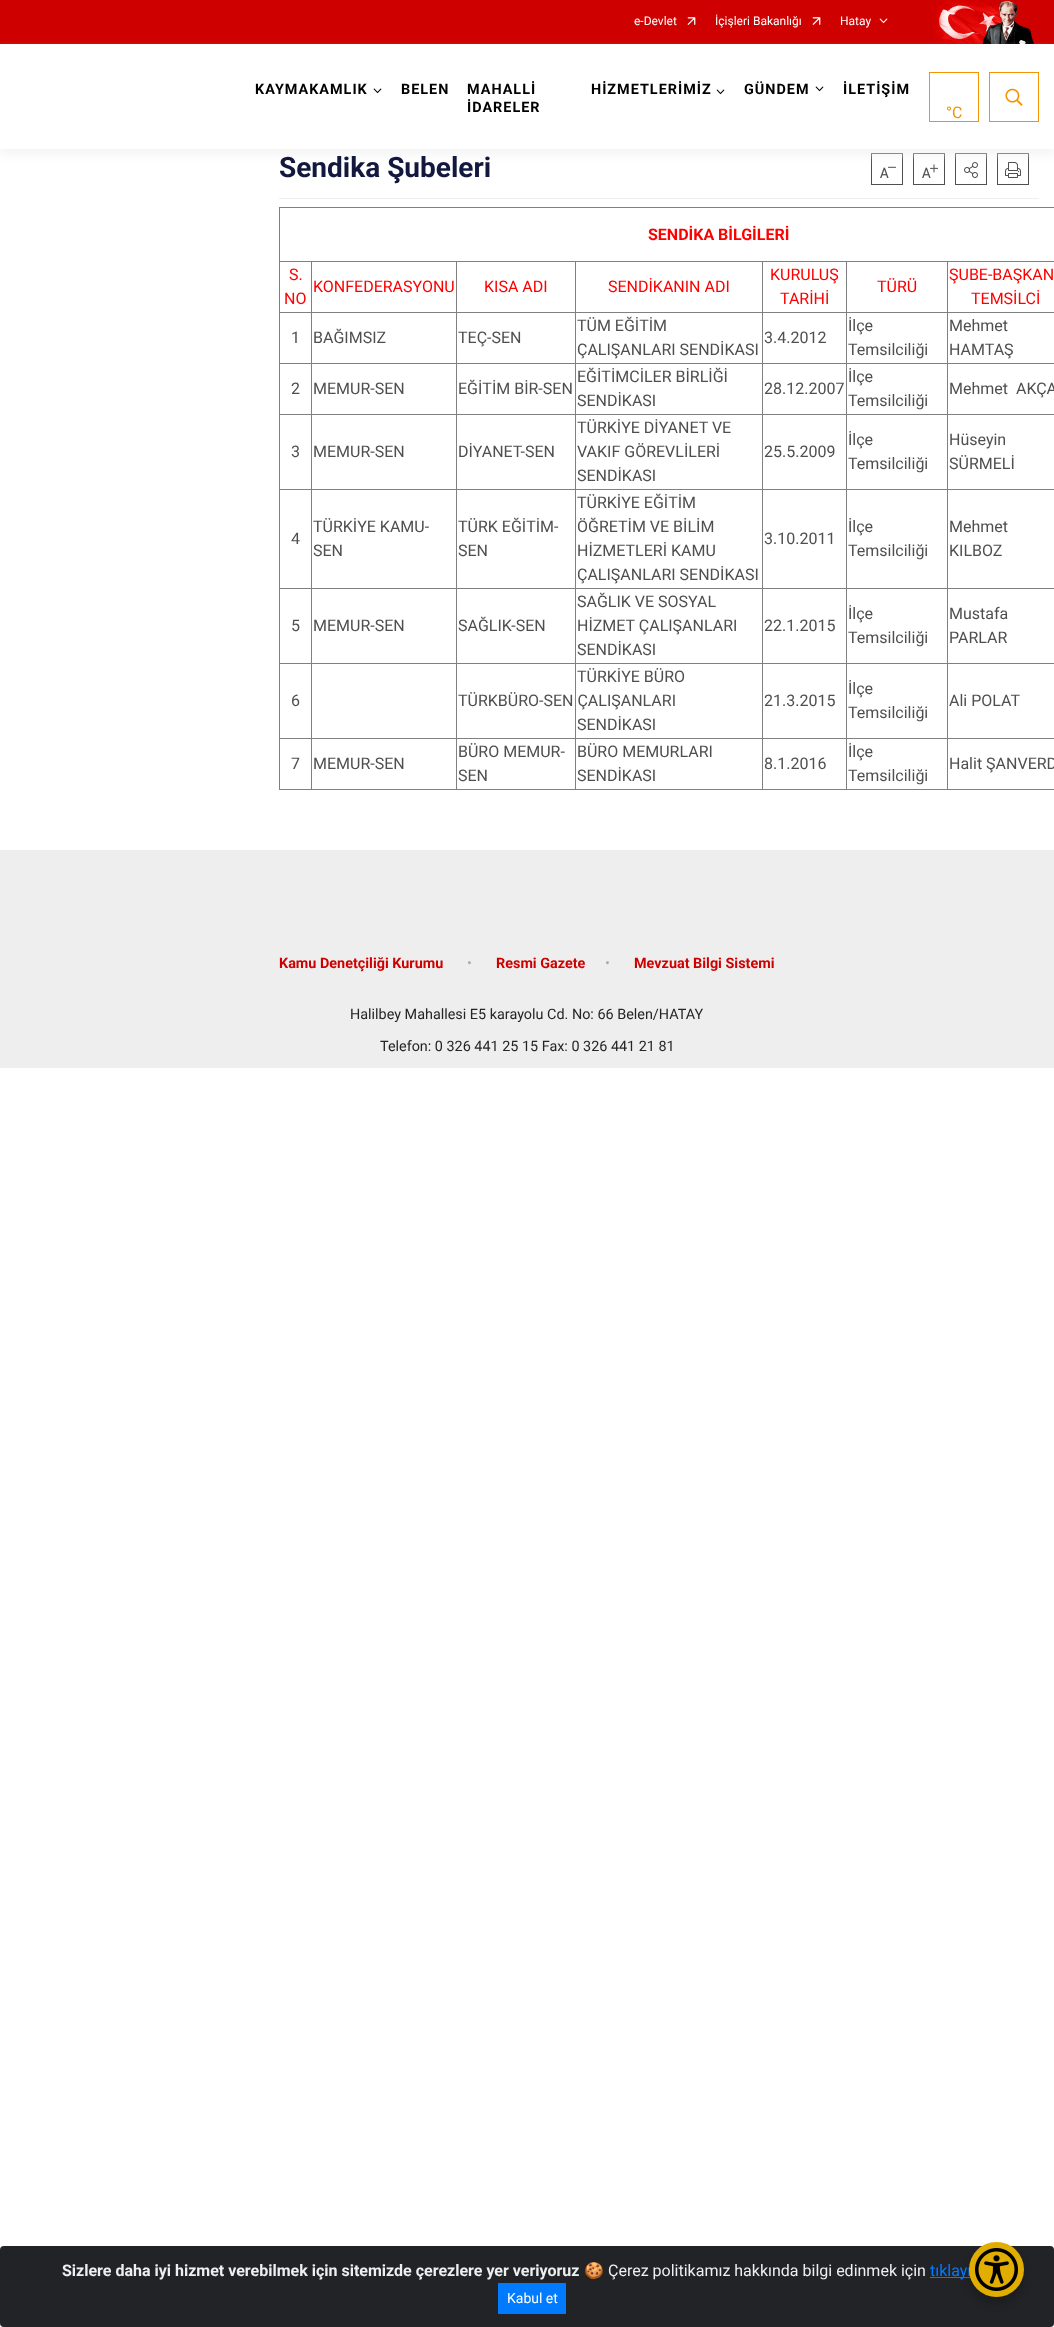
async function draw(canvas) {
  canvas.width = 1054;
  canvas.height = 2327;
  const ctx = canvas.getContext('2d');
  ctx.miterLimit = 4;
  ctx.fontKerning = 'normal';
  function label(s, x, y, font, color) {
    ctx.font = font;
    ctx.fillStyle = color;
    ctx.fillText(s, x, y);
  }
  function rect(x, y, w, h, color) {
    ctx.fillStyle = color;
    ctx.fillRect(x, y, w, h);
  }
  function roundedRect(x, y, w, h, r, color) {
    ctx.fillStyle = color;
    ctx.beginPath();
    ctx.roundRect(x, y, w, h, r);
    ctx.fill();
  }
  async function image(src, x, y, w, h) {
    const img = new Image();
    img.src = src;
    await img.decode();
    ctx.drawImage(img, x, y, w, h);
  }
  let path;

  rect(0, 0, 1054, 2327, '#fff');
  rect(0, 0, 1054, 44, '#ce0000');
  label('e-Devlet', 634, 25, '12px Roboto', '#fff');
  await image('assets/img1.png', 687, 17, 9, 8);
  label('İçişleri Bakanlığı', 715, 25, '12px Roboto', '#fff');
  await image('assets/img1.png', 812, 17, 9, 8);
  label('Hatay', 840, 25, '12px Roboto', '#fff');
  await image('assets/img2.png', 879, 18, 9, 6);
  await image('assets/img3.png', 933, 0, 101, 44);
  ctx.strokeStyle = '#4f4f4f';
  ctx.strokeRect(871.5, 153.5, 31, 31);
  await image('assets/img6.png', 880, 166, 16, 12);
  ctx.strokeRect(913.5, 153.5, 31, 31);
  await image('assets/img7.png', 922, 164, 16, 14);
  ctx.strokeRect(955.5, 153.5, 31, 31);
  await image('assets/img8.png', 964, 162, 14, 16);
  ctx.strokeRect(997.5, 153.5, 31, 31);
  await image('assets/img9.png', 1005, 162, 16, 16);
  ctx.save();
  path = new Path2D('M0 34H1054V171H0ZM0 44H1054V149H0Z');
  ctx.clip(path, 'evenodd');
  ctx.fillStyle = '#eeeeee9e';
  ctx.filter = 'blur(5px)';
  ctx.beginPath();
  ctx.rect(0, 50, 1054, 105);
  ctx.fill();
  ctx.filter = 'none';
  ctx.restore();
  ctx.letterSpacing = '1px';
  label('KAYMAKAMLIK', 255, 94, 'bold 14.4px Roboto', '#000');
  await image('assets/img4.png', 373, 88, 9, 6);
  label('BELEN', 401, 94, 'bold 14.4px Roboto', '#000');
  label('MAHALLİ', 467, 94, 'bold 14.4px Roboto', '#000');
  label('İDARELER', 467, 112, 'bold 14.4px Roboto', '#000');
  label('HİZMETLERİMİZ', 591, 94, 'bold 14.4px Roboto', '#000');
  await image('assets/img4.png', 716, 89, 9, 6);
  label('GÜNDEM', 744, 94, 'bold 14.4px Roboto', '#000');
  await image('assets/img4.png', 815, 86, 9, 6);
  label('İLETİŞİM', 843, 94, 'bold 14.4px Roboto', '#000');
  ctx.strokeStyle = '#f59300';
  ctx.strokeRect(929.5, 72.5, 49, 49);
  ctx.letterSpacing = '0px';
  label('°C', 946, 118, '16px Roboto', '#f59300');
  ctx.strokeRect(989.5, 72.5, 49, 49);
  await image('assets/img5.png', 1005, 88, 18, 18);
  rect(279, 198, 760, 1, '#eee');
  label('Sendika Şubeleri', 279, 177, 'bold 28px Roboto', '#13183e');
  rect(279, 207, 775, 1, '#808080');
  rect(279, 789, 775, 1, '#808080');
  rect(279, 207, 1, 583, '#808080');
  label('SENDİKA BİLGİLERİ', 648, 240, 'bold 16px Roboto', '#f00');
  rect(947, 261, 107, 1, '#808080');
  rect(947, 312, 107, 1, '#808080');
  rect(947, 363, 107, 1, '#808080');
  rect(947, 414, 107, 1, '#808080');
  rect(947, 489, 107, 1, '#808080');
  rect(947, 588, 107, 1, '#808080');
  rect(947, 663, 107, 1, '#808080');
  rect(947, 738, 107, 1, '#808080');
  rect(947, 738, 1, 52, '#808080');
  rect(846, 738, 102, 1, '#808080');
  rect(947, 663, 1, 76, '#808080');
  rect(846, 663, 102, 1, '#808080');
  rect(947, 588, 1, 76, '#808080');
  rect(846, 588, 102, 1, '#808080');
  rect(947, 489, 1, 100, '#808080');
  rect(846, 489, 102, 1, '#808080');
  rect(947, 414, 1, 76, '#808080');
  rect(846, 414, 102, 1, '#808080');
  rect(947, 363, 1, 52, '#808080');
  rect(846, 363, 102, 1, '#808080');
  rect(947, 312, 1, 52, '#808080');
  rect(846, 312, 102, 1, '#808080');
  rect(947, 261, 1, 52, '#808080');
  rect(846, 261, 102, 1, '#808080');
  rect(846, 738, 1, 52, '#808080');
  rect(762, 738, 85, 1, '#808080');
  rect(846, 663, 1, 76, '#808080');
  rect(762, 663, 85, 1, '#808080');
  rect(846, 588, 1, 76, '#808080');
  rect(762, 588, 85, 1, '#808080');
  rect(846, 489, 1, 100, '#808080');
  rect(762, 489, 85, 1, '#808080');
  rect(846, 414, 1, 76, '#808080');
  rect(762, 414, 85, 1, '#808080');
  rect(846, 363, 1, 52, '#808080');
  rect(762, 363, 85, 1, '#808080');
  rect(846, 312, 1, 52, '#808080');
  rect(762, 312, 85, 1, '#808080');
  rect(846, 261, 1, 52, '#808080');
  rect(762, 261, 85, 1, '#808080');
  rect(762, 738, 1, 52, '#808080');
  rect(575, 738, 188, 1, '#808080');
  rect(762, 663, 1, 76, '#808080');
  rect(575, 663, 188, 1, '#808080');
  rect(762, 588, 1, 76, '#808080');
  rect(575, 588, 188, 1, '#808080');
  rect(762, 489, 1, 100, '#808080');
  rect(575, 489, 188, 1, '#808080');
  rect(762, 414, 1, 76, '#808080');
  rect(575, 414, 188, 1, '#808080');
  rect(762, 363, 1, 52, '#808080');
  rect(575, 363, 188, 1, '#808080');
  rect(762, 312, 1, 52, '#808080');
  rect(575, 312, 188, 1, '#808080');
  rect(762, 261, 1, 52, '#808080');
  rect(575, 261, 188, 1, '#808080');
  rect(575, 738, 1, 52, '#808080');
  rect(456, 738, 120, 1, '#808080');
  rect(575, 663, 1, 76, '#808080');
  rect(456, 663, 120, 1, '#808080');
  rect(575, 588, 1, 76, '#808080');
  rect(456, 588, 120, 1, '#808080');
  rect(575, 489, 1, 100, '#808080');
  rect(456, 489, 120, 1, '#808080');
  rect(575, 414, 1, 76, '#808080');
  rect(456, 414, 120, 1, '#808080');
  rect(575, 363, 1, 52, '#808080');
  rect(456, 363, 120, 1, '#808080');
  rect(575, 312, 1, 52, '#808080');
  rect(456, 312, 120, 1, '#808080');
  rect(575, 261, 1, 52, '#808080');
  rect(456, 261, 120, 1, '#808080');
  rect(456, 738, 1, 52, '#808080');
  rect(311, 738, 146, 1, '#808080');
  rect(456, 663, 1, 76, '#808080');
  rect(311, 663, 146, 1, '#808080');
  rect(456, 588, 1, 76, '#808080');
  rect(311, 588, 146, 1, '#808080');
  rect(456, 489, 1, 100, '#808080');
  rect(311, 489, 146, 1, '#808080');
  rect(456, 414, 1, 76, '#808080');
  rect(311, 414, 146, 1, '#808080');
  rect(456, 363, 1, 52, '#808080');
  rect(311, 363, 146, 1, '#808080');
  rect(456, 312, 1, 52, '#808080');
  rect(311, 312, 146, 1, '#808080');
  rect(456, 261, 1, 52, '#808080');
  rect(311, 261, 146, 1, '#808080');
  rect(311, 738, 1, 52, '#808080');
  rect(279, 738, 33, 1, '#808080');
  rect(311, 663, 1, 76, '#808080');
  rect(279, 663, 33, 1, '#808080');
  rect(311, 588, 1, 76, '#808080');
  rect(279, 588, 33, 1, '#808080');
  rect(311, 489, 1, 100, '#808080');
  rect(279, 489, 33, 1, '#808080');
  rect(311, 414, 1, 76, '#808080');
  rect(279, 414, 33, 1, '#808080');
  rect(311, 363, 1, 52, '#808080');
  rect(279, 363, 33, 1, '#808080');
  rect(311, 312, 1, 52, '#808080');
  rect(279, 312, 33, 1, '#808080');
  rect(311, 261, 1, 52, '#808080');
  rect(279, 261, 33, 1, '#808080');
  label('S.', 289, 280, '16px Roboto', '#f00');
  label('NO', 284, 304, '16px Roboto', '#f00');
  label('KONFEDERASYONU', 313, 292, '16px Roboto', '#f00');
  label('KISA ADI', 484, 292, '16px Roboto', '#f00');
  label('SENDİKANIN ADI', 608, 292, '16px Roboto', '#f00');
  label('KURULUŞ', 770, 280, '16px Roboto', '#f00');
  label('TARİHİ', 780, 304, '16px Roboto', '#f00');
  label('TÜRÜ', 877, 292, '16px Roboto', '#f00');
  label('ŞUBE-BAŞKAN', 949, 280, '16px Roboto', '#f00');
  label('TEMSİLCİ', 971, 304, '16px Roboto', '#f00');
  label('1', 291, 343, '16px Roboto', '#4f4f4f');
  label('BAĞIMSIZ', 313, 343, '16px Roboto', '#4f4f4f');
  label('TEÇ-SEN', 458, 343, '16px Roboto', '#4f4f4f');
  label('TÜM EĞİTİM', 577, 331, '16px Roboto', '#4f4f4f');
  label('ÇALIŞANLARI SENDİKASI', 577, 355, '16px Roboto', '#4f4f4f');
  label('3.4.2012', 764, 343, '16px Roboto', '#4f4f4f');
  label('İlçe', 848, 331, '16px Roboto', '#4f4f4f');
  label('Temsilciliği', 848, 355, '16px Roboto', '#4f4f4f');
  label('Mehmet', 949, 331, '16px Roboto', '#4f4f4f');
  label('HAMTAŞ', 949, 355, '16px Roboto', '#4f4f4f');
  label('2', 291, 394, '16px Roboto', '#4f4f4f');
  label('MEMUR-SEN', 313, 394, '16px Roboto', '#4f4f4f');
  label('EĞİTİM BİR-SEN', 458, 394, '16px Roboto', '#4f4f4f');
  label('EĞİTİMCİLER BİRLİĞİ', 577, 382, '16px Roboto', '#4f4f4f');
  label('SENDİKASI', 577, 406, '16px Roboto', '#4f4f4f');
  label('28.12.2007', 764, 394, '16px Roboto', '#4f4f4f');
  label('İlçe', 848, 382, '16px Roboto', '#4f4f4f');
  label('Temsilciliği', 848, 406, '16px Roboto', '#4f4f4f');
  label('Mehmet  AKÇA', 949, 394, '16px Roboto', '#4f4f4f');
  label('3', 291, 457, '16px Roboto', '#4f4f4f');
  label('MEMUR-SEN', 313, 457, '16px Roboto', '#4f4f4f');
  label('DİYANET-SEN', 458, 457, '16px Roboto', '#4f4f4f');
  label('TÜRKİYE DİYANET VE', 577, 433, '16px Roboto', '#4f4f4f');
  label('VAKIF GÖREVLİLERİ', 577, 457, '16px Roboto', '#4f4f4f');
  label('SENDİKASI', 577, 481, '16px Roboto', '#4f4f4f');
  label('25.5.2009', 764, 457, '16px Roboto', '#4f4f4f');
  label('İlçe', 848, 445, '16px Roboto', '#4f4f4f');
  label('Temsilciliği', 848, 469, '16px Roboto', '#4f4f4f');
  label('Hüseyin', 949, 445, '16px Roboto', '#4f4f4f');
  label('SÜRMELİ', 949, 469, '16px Roboto', '#4f4f4f');
  label('4', 291, 544, '16px Roboto', '#4f4f4f');
  label('TÜRKİYE KAMU-', 313, 532, '16px Roboto', '#4f4f4f');
  label('SEN', 313, 556, '16px Roboto', '#4f4f4f');
  label('TÜRK EĞİTİM-', 458, 532, '16px Roboto', '#4f4f4f');
  label('SEN', 458, 556, '16px Roboto', '#4f4f4f');
  label('TÜRKİYE EĞİTİM', 577, 508, '16px Roboto', '#4f4f4f');
  label('ÖĞRETİM VE BİLİM', 577, 532, '16px Roboto', '#4f4f4f');
  label('HİZMETLERİ KAMU', 577, 556, '16px Roboto', '#4f4f4f');
  label('ÇALIŞANLARI SENDİKASI', 577, 580, '16px Roboto', '#4f4f4f');
  label('3.10.2011', 764, 544, '16px Roboto', '#4f4f4f');
  label('İlçe', 848, 532, '16px Roboto', '#4f4f4f');
  label('Temsilciliği', 848, 556, '16px Roboto', '#4f4f4f');
  label('Mehmet', 949, 532, '16px Roboto', '#4f4f4f');
  label('KILBOZ', 949, 556, '16px Roboto', '#4f4f4f');
  label('5', 291, 631, '16px Roboto', '#4f4f4f');
  label('MEMUR-SEN', 313, 631, '16px Roboto', '#4f4f4f');
  label('SAĞLIK-SEN', 458, 631, '16px Roboto', '#4f4f4f');
  label('SAĞLIK VE SOSYAL', 577, 607, '16px Roboto', '#4f4f4f');
  label('HİZMET ÇALIŞANLARI', 577, 631, '16px Roboto', '#4f4f4f');
  label('SENDİKASI', 577, 655, '16px Roboto', '#4f4f4f');
  label('22.1.2015', 764, 631, '16px Roboto', '#4f4f4f');
  label('İlçe', 848, 619, '16px Roboto', '#4f4f4f');
  label('Temsilciliği', 848, 643, '16px Roboto', '#4f4f4f');
  label('Mustafa', 949, 619, '16px Roboto', '#4f4f4f');
  label('PARLAR', 949, 643, '16px Roboto', '#4f4f4f');
  label('TÜRKİYE BÜRO', 577, 682, '16px Roboto', '#4f4f4f');
  label('SENDİKASI', 577, 730, '16px Roboto', '#4f4f4f');
  label('İlçe', 848, 694, '16px Roboto', '#4f4f4f');
  label('Temsilciliği', 848, 718, '16px Roboto', '#4f4f4f');
  label('6', 291, 706, '16px Roboto', '#4f4f4f');
  label('TÜRKBÜRO-SEN ÇALIŞANLARI', 458, 706, '16px Roboto', '#4f4f4f');
  label('21.3.2015', 764, 706, '16px Roboto', '#4f4f4f');
  label('Ali POLAT', 949, 706, '16px Roboto', '#4f4f4f');
  label('7', 291, 769, '16px Roboto', '#4f4f4f');
  label('MEMUR-SEN', 313, 769, '16px Roboto', '#4f4f4f');
  label('BÜRO MEMUR-', 458, 757, '16px Roboto', '#4f4f4f');
  label('SEN', 458, 781, '16px Roboto', '#4f4f4f');
  label('BÜRO MEMURLARI', 577, 757, '16px Roboto', '#4f4f4f');
  label('SENDİKASI', 577, 781, '16px Roboto', '#4f4f4f');
  label('8.1.2016', 764, 769, '16px Roboto', '#4f4f4f');
  label('İlçe', 848, 757, '16px Roboto', '#4f4f4f');
  label('Temsilciliği', 848, 781, '16px Roboto', '#4f4f4f');
  label('Halit ŞANVERD', 949, 769, '16px Roboto', '#4f4f4f');
  rect(0, 850, 1054, 218, '#eee');
  label('Kamu Denetçiliği Kurumu', 279, 968, 'bold 14.4px Roboto', '#ce0000');
  label('•', 467, 968, '14.4px Roboto', '#aaa');
  label('Resmi Gazete', 496, 968, 'bold 14.4px Roboto', '#ce0000');
  label('•', 605, 968, '14.4px Roboto', '#aaa');
  label('Mevzuat Bilgi Sistemi', 634, 968, 'bold 14.4px Roboto', '#ce0000');
  label('Halilbey Mahallesi E5 karayolu Cd. No: 66 Belen/HATAY', 350, 1019, '14.4px Roboto', '#252525');
  label('Telefon: 0 326 441 25 15 Fax: 0 326 441 21 81', 380, 1051, '14.4px Roboto', '#252525');
  roundedRect(0, 2246, 1054, 81, 4, '#212327');
  label('Sizlere daha iyi hizmet verebilmek için sitemizde çerezlere yer veriyoruz', 62, 2276, 'bold 16px Roboto', '#ecf0f1');
  label('🍪', 584, 2276, '16px Noto Color Emoji', '#ecf0f1');
  label('Çerez politikamız hakkında bilgi edinmek için', 608, 2276, '16px Roboto', '#ecf0f1');
  rect(930, 2277, 41, 1, '#007bff');
  label('tıklayı', 930, 2276, '16px Roboto', '#007bff');
  rect(498, 2283, 68, 31, '#007bff');
  label('Kabul et', 507, 2303, '14px Roboto', '#fff');
  ctx.fillStyle = '#00000033';
  ctx.filter = 'blur(4px)';
  ctx.beginPath();
  ctx.roundRect(969, 2248, 55, 55, 27.5);
  ctx.fill();
  ctx.filter = 'none';
  ctx.fillStyle = '#e1ad01';
  ctx.beginPath();
  ctx.arc(996.5, 2269.5, 27.5, 0, 2 * Math.PI);
  ctx.fill();
  await image('assets/img10.png', 975, 2248, 43, 43);
}

draw(document.querySelector('canvas'));
